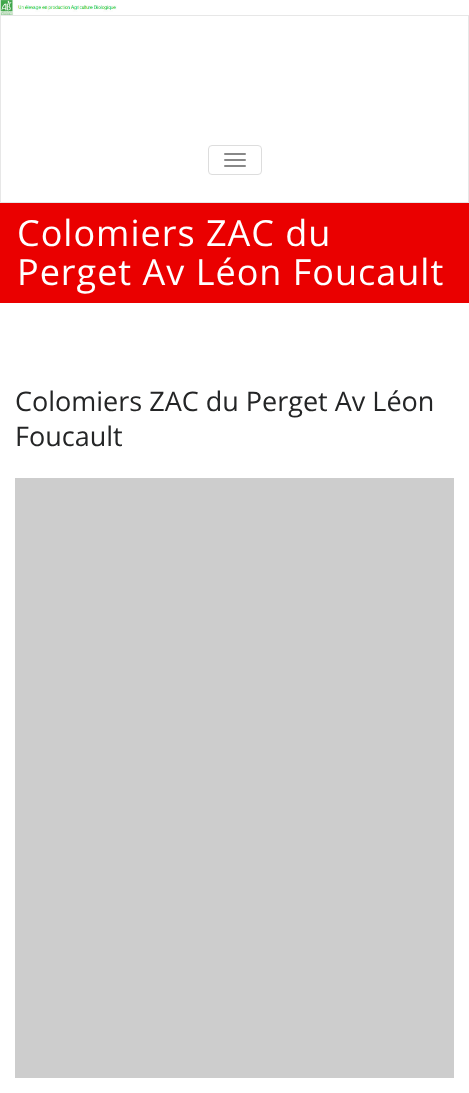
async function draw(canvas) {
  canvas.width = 469;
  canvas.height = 1093;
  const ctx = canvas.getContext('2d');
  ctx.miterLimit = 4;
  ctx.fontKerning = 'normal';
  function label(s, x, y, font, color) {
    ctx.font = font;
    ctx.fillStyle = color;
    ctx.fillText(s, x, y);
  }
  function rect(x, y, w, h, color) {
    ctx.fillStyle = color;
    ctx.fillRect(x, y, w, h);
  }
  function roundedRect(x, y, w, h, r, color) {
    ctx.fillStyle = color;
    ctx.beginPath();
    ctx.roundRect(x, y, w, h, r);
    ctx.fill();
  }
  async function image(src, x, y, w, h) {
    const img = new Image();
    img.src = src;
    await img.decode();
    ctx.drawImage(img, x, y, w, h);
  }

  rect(0, 0, 469, 1093, '#fff');
  await image('assets/img1.png', 0, 0, 117, 15);
  ctx.strokeStyle = '#e7e7e7';
  ctx.strokeRect(0.5, 15.5, 468, 187);
  ctx.beginPath();
  ctx.roundRect(208.5, 145.5, 53, 29, 3.5);
  ctx.strokeStyle = '#ddd';
  ctx.stroke();
  roundedRect(224, 153, 22, 2, 1, '#888');
  roundedRect(224, 159, 22, 2, 1, '#888');
  roundedRect(224, 165, 22, 2, 1, '#888');
  rect(0, 203, 469, 100, '#ea0000');
  ctx.letterSpacing = '1px';
  label('Colomiers ZAC du', 17, 246, '36px Open Sans', '#fff');
  label('Perget Av Léon Foucault', 17, 285, '36px Open Sans', '#fff');
  ctx.letterSpacing = '0px';
  label('Colomiers ZAC du Perget Av Léon', 15, 411, '27px Open Sans', '#242526');
  label('Foucault', 15, 446, '27px Open Sans', '#242526');
  rect(15, 478, 439, 600, '#cdcdcd');
}

draw(document.querySelector('canvas'));
